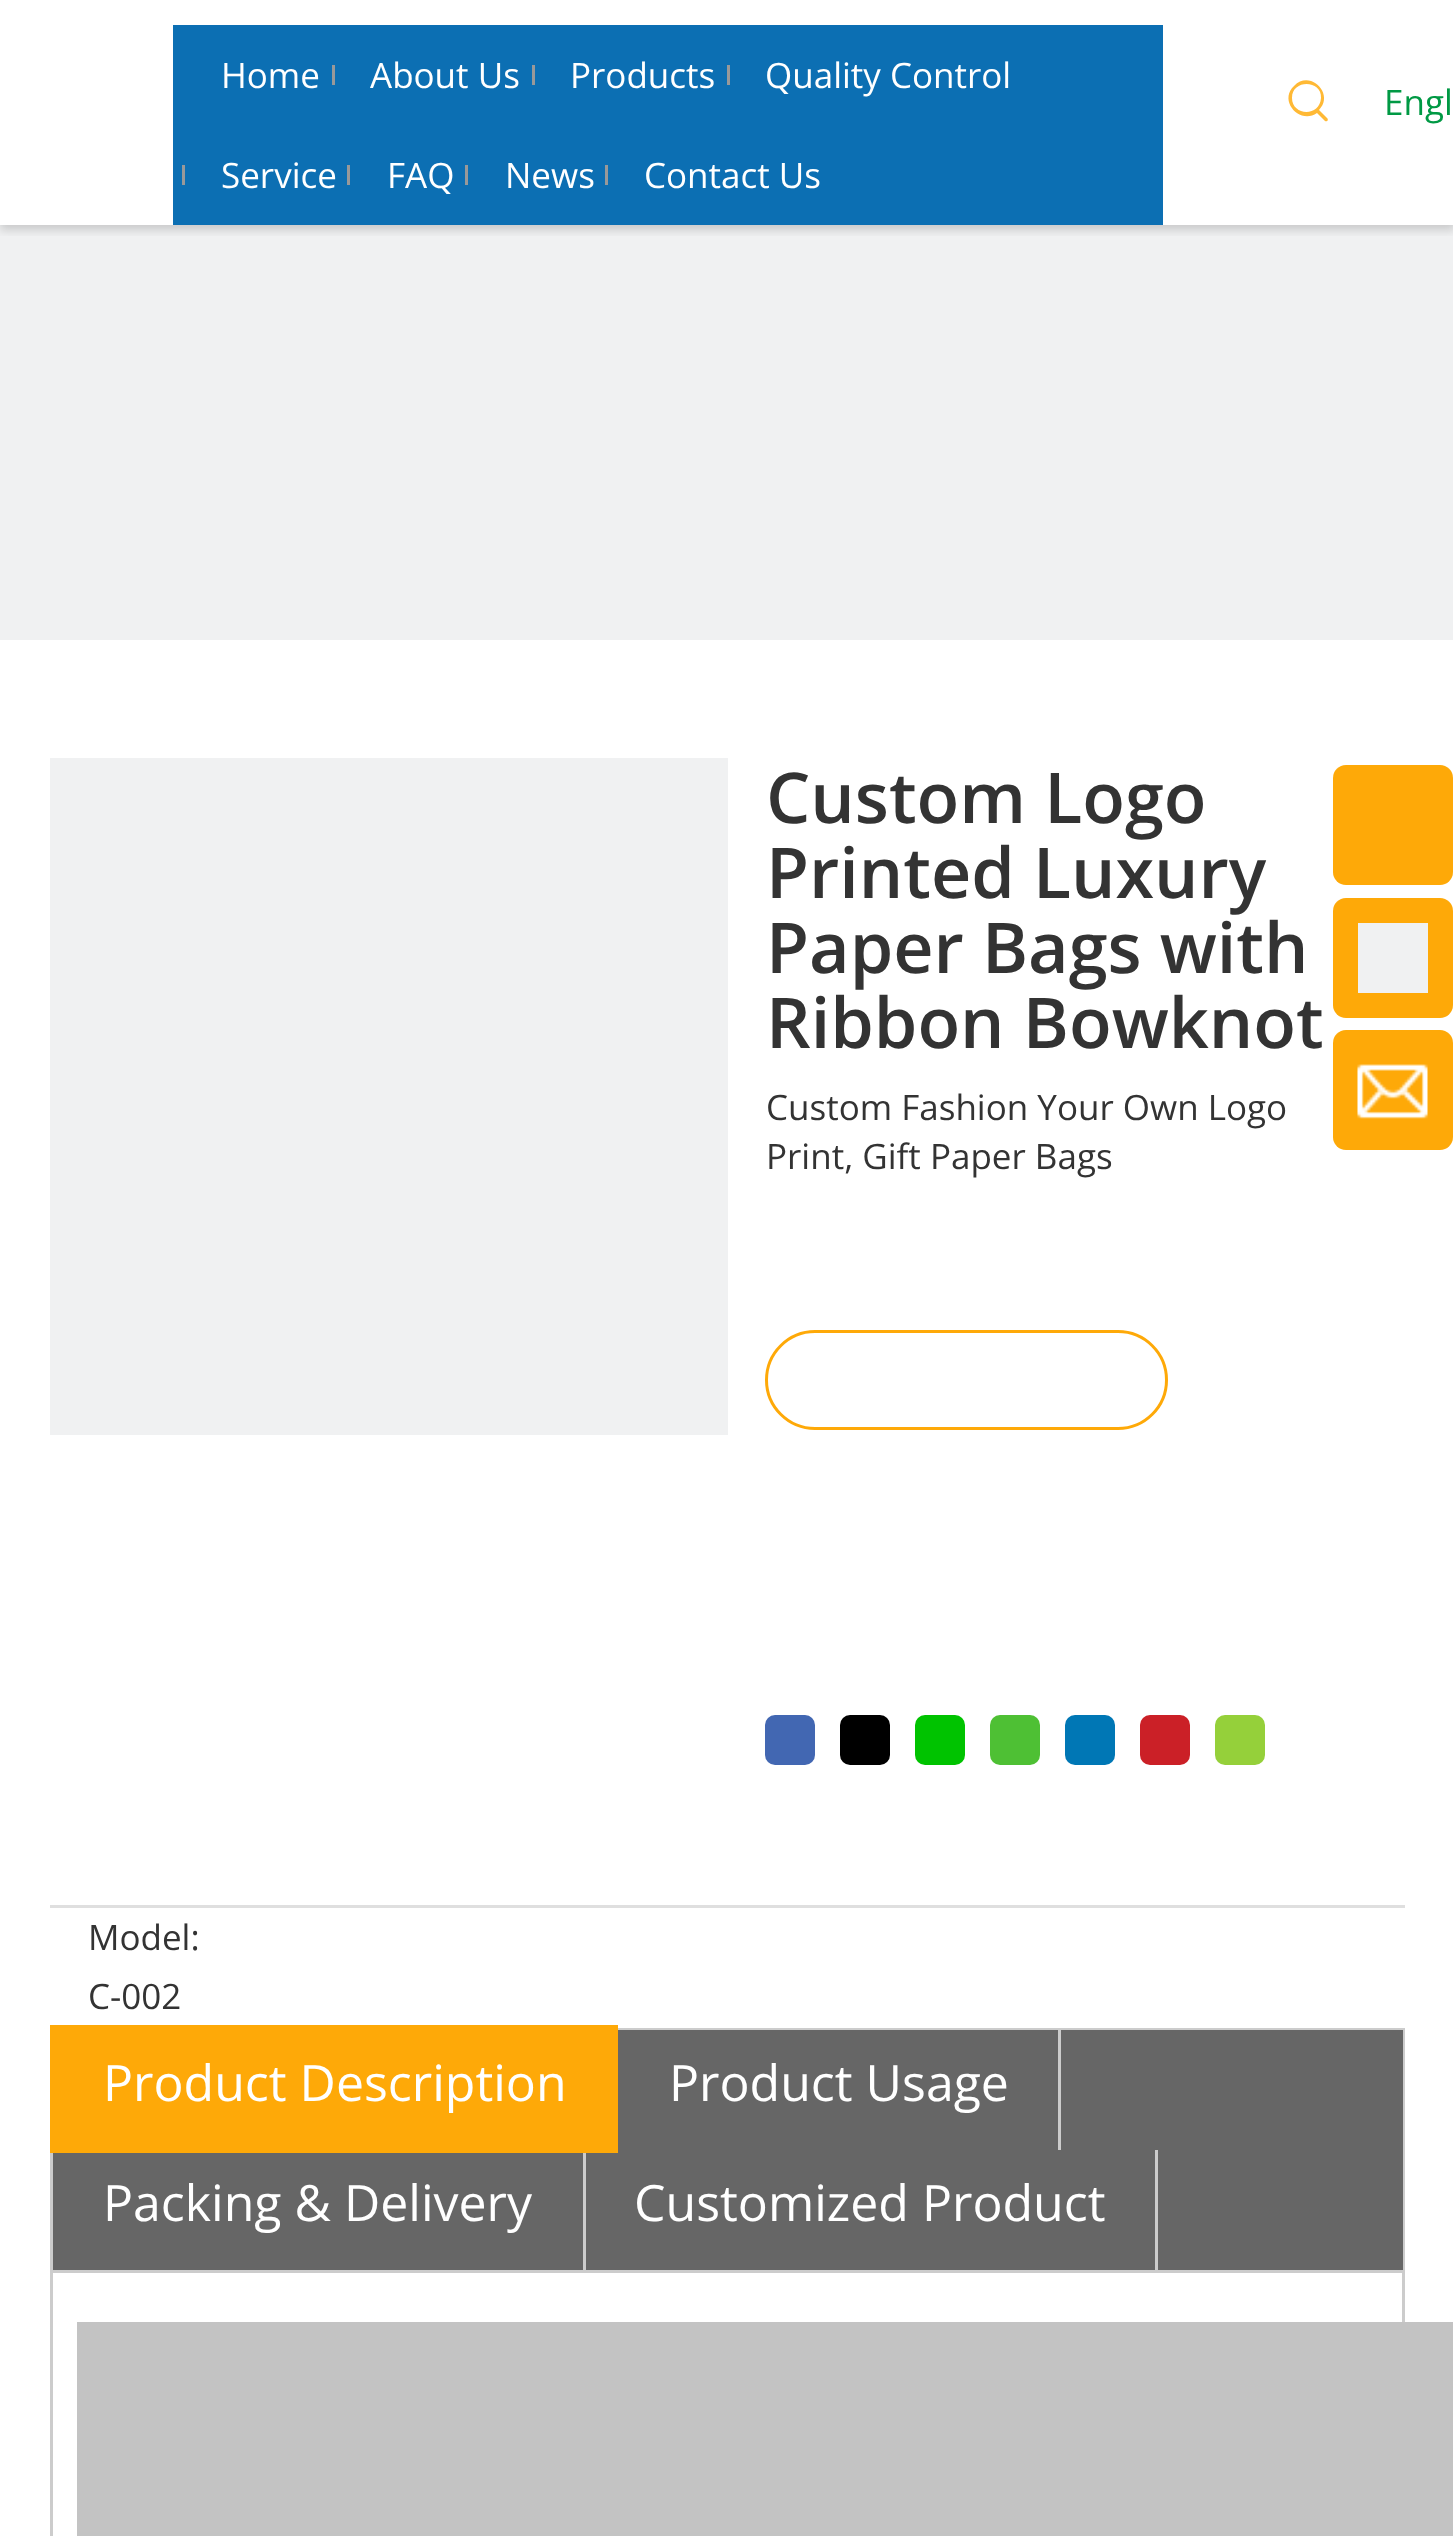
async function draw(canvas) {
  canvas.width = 1453;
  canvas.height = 2536;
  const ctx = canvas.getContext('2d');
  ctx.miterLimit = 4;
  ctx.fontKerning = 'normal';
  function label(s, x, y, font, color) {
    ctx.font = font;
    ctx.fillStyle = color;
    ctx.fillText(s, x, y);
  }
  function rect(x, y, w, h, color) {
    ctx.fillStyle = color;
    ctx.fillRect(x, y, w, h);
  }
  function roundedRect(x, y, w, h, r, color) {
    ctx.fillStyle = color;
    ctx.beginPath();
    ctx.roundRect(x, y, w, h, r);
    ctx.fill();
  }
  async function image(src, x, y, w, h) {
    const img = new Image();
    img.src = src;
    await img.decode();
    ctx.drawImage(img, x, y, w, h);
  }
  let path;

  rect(0, 0, 1453, 2536, '#fff');
  rect(0, 225, 1453, 415, '#f0f1f2');
  ctx.save();
  ctx.beginPath();
  ctx.rect(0, 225, 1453, 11);
  ctx.clip();
  ctx.fillStyle = '#00000029';
  ctx.filter = 'blur(5px)';
  ctx.beginPath();
  ctx.rect(0, 5, 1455, 225);
  ctx.fill();
  ctx.filter = 'none';
  ctx.restore();
  rect(173, 25, 990, 200, '#0c6fb3');
  label('Home', 221, 88, '35px Open Sans', '#fff');
  rect(332, 65, 3, 20, '#999');
  label('About Us', 370, 88, '35px Open Sans', '#fff');
  rect(532, 65, 3, 20, '#999');
  label('Products', 570, 88, '35px Open Sans', '#fff');
  rect(727, 65, 3, 20, '#999');
  label('Quality Control', 765, 88, '35px Open Sans', '#fff');
  rect(182, 165, 3, 20, '#999');
  label('Service', 221, 188, '35px Open Sans', '#fff');
  rect(347, 165, 3, 20, '#999');
  label('FAQ', 387, 188, '35px Open Sans', '#fff');
  rect(465, 165, 3, 20, '#999');
  label('News', 505, 188, '35px Open Sans', '#fff');
  rect(605, 165, 3, 20, '#999');
  label('Contact Us', 644, 188, '35px Open Sans', '#fff');
  ctx.fillStyle = '#ffb935';
  path = new Path2D('M1292 98C1292 79 1322 80 1321 98C1320 117 1292 116 1292 98ZM1327 118L1319 110C1335 94 1310 69 1294 86C1278 101 1300 125 1317 113L1325 121C1327 122 1329 120 1327 118');
  ctx.fill(path);
  label('Engl', 1384, 115, '35px Open Sans', '#094');
  rect(50, 758, 678, 677, '#f0f1f2');
  label('Custom Logo', 766, 823, '600 70px Open Sans', '#333');
  label('Printed Luxury', 766, 898, '600 70px Open Sans', '#333');
  label('Paper Bags with', 766, 973, '600 70px Open Sans', '#333');
  label('Ribbon Bowknot', 766, 1048, '600 70px Open Sans', '#333');
  label('Custom Fashion Your Own Logo', 766, 1120, '35px Open Sans', '#333');
  label('Print, Gift Paper Bags', 766, 1169, '35px Open Sans', '#333');
  ctx.beginPath();
  ctx.roundRect(766.5, 1331.5, 400, 97, 48.5);
  ctx.strokeStyle = '#fea908';
  ctx.lineWidth = 3;
  ctx.stroke();
  roundedRect(765, 1715, 50, 50, 10, '#4267b2');
  roundedRect(840, 1715, 50, 50, 10, '#000');
  roundedRect(915, 1715, 50, 50, 10, '#00c300');
  roundedRect(990, 1715, 50, 50, 10, '#4ec034');
  roundedRect(1065, 1715, 50, 50, 10, '#0077b5');
  roundedRect(1140, 1715, 50, 50, 10, '#cb2027');
  roundedRect(1215, 1715, 50, 50, 10, '#95d03a');
  rect(50, 1905, 1355, 3, '#dfdfdf');
  label('Model:', 88, 1950, '35px Open Sans', '#333');
  label('C-002', 88, 2009, '35px Open Sans', '#333');
  ctx.strokeStyle = '#ccc';
  ctx.strokeRect(51.5, 2029.5, 1352, 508);
  rect(618, 2030, 785, 240, '#666');
  rect(53, 2270, 1350, 3, '#ccc');
  rect(586, 2150, 32, 120, '#666');
  rect(583, 2150, 3, 120, '#ccc');
  rect(50, 2025, 568, 128, '#fea908');
  label('Product Description', 103, 2101, '50px Open Sans', '#fff');
  rect(1058, 2030, 3, 120, '#ccc');
  label('Product Usage', 669, 2101, '50px Open Sans', '#fff');
  rect(53, 2153, 530, 117, '#666');
  label('Packing & Delivery', 103, 2221, '50px Open Sans', '#fff');
  rect(1155, 2150, 3, 120, '#ccc');
  label('Customized Product', 634, 2221, '50px Open Sans', '#fff');
  rect(77, 2322, 1376, 214, '#c3c3c3');
  roundedRect(1333, 765, 120, 120, 13, '#fea908');
  roundedRect(1333, 898, 120, 120, 13, '#fea908');
  rect(1358, 923, 70, 70, '#f0f1f2');
  roundedRect(1333, 1030, 120, 120, 13, '#fea908');
  await image('assets/img1.png', 1357, 1064, 71, 55);
}

draw(document.querySelector('canvas'));
